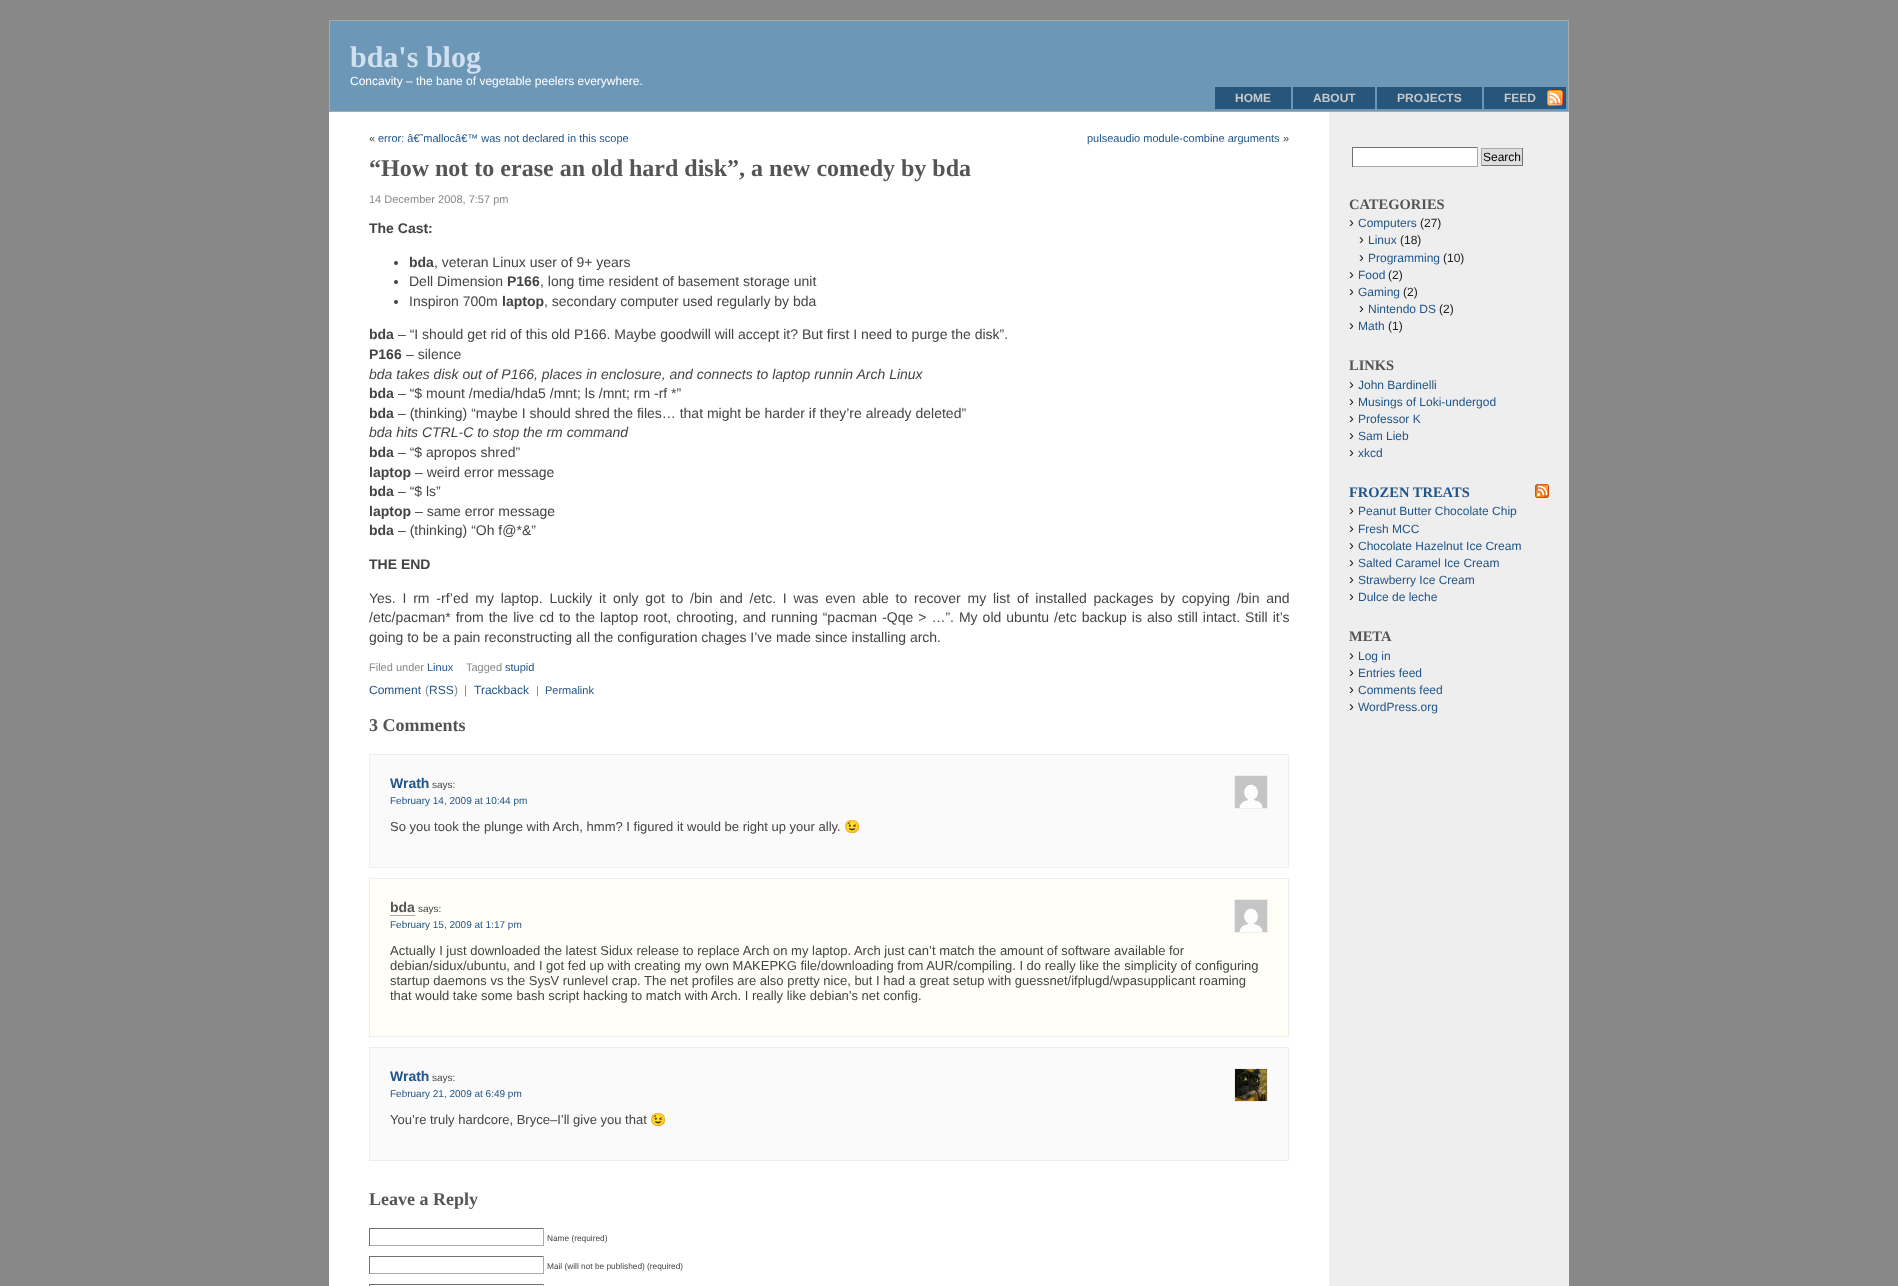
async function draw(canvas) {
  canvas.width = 1898;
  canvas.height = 1286;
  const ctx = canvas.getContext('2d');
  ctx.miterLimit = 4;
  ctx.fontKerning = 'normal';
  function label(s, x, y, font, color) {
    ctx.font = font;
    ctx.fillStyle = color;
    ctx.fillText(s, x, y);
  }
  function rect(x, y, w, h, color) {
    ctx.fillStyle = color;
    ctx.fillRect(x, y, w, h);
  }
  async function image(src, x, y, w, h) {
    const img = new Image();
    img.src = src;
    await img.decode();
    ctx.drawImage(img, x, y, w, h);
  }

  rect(0, 0, 1898, 1286, '#888');
  ctx.fillStyle = '#6d97b7';
  ctx.beginPath();
  ctx.rect(329.5, 20.5, 1239, 91);
  ctx.fill();
  ctx.strokeStyle = '#aaa';
  ctx.stroke();
  label('bda\'s blog', 350, 67, 'bold 30px Liberation Serif', '#d0e0f0');
  label('Concavity – the bane of vegetable peelers everywhere.', 350, 85, '12px Liberation Sans', '#fff');
  rect(1215, 87, 76, 22, '#27567a');
  label('HOME', 1235, 102, 'bold 12px Liberation Sans', '#c6c8c9');
  rect(1293, 87, 82, 22, '#27567a');
  label('ABOUT', 1313, 102, 'bold 12px Liberation Sans', '#c6c8c9');
  rect(1377, 87, 105, 22, '#27567a');
  label('PROJECTS', 1397, 102, 'bold 12px Liberation Sans', '#c6c8c9');
  rect(1484, 87, 82, 22, '#27567a');
  await image('assets/img1.png', 1547, 90, 16, 16);
  label('FEED', 1504, 102, 'bold 12px Liberation Sans', '#c6c8c9');
  rect(329, 112, 1000, 1174, '#fff');
  rect(1329, 112, 240, 1174, '#eee');
  label('«', 369, 142, '11px Liberation Sans', '#444');
  label('error: â€˜mallocâ€™ was not declared in this scope', 378, 142, '11px Liberation Sans', '#258');
  label('pulseaudio module-combine arguments', 1087, 142, '11px Liberation Sans', '#258');
  label('»', 1283, 142, '11px Liberation Sans', '#444');
  label('“How not to erase an old hard disk”, a new comedy by bda', 369, 176, 'bold 24px Liberation Serif', '#555');
  label('14 December 2008, 7:57 pm', 369, 203, '11px Liberation Sans', '#888');
  label('The Cast:', 369, 233, 'bold 14px Liberation Sans', '#444');
  ctx.beginPath();
  ctx.arc(396, 263, 2, 0, 2 * Math.PI);
  ctx.fill();
  label('bda', 409, 267, 'bold 14px Liberation Sans', '#444');
  label(', veteran Linux user of 9+ years', 434, 267, '14px Liberation Sans', '#444');
  ctx.beginPath();
  ctx.arc(396, 282, 2, 0, 2 * Math.PI);
  ctx.fill();
  label('Dell Dimension', 409, 286, '14px Liberation Sans', '#444');
  label('P166', 507, 286, 'bold 14px Liberation Sans', '#444');
  label(', long time resident of basement storage unit', 540, 286, '14px Liberation Sans', '#444');
  ctx.beginPath();
  ctx.arc(396, 302, 2, 0, 2 * Math.PI);
  ctx.fill();
  label('Inspiron 700m', 409, 306, '14px Liberation Sans', '#444');
  label('laptop', 502, 306, 'bold 14px Liberation Sans', '#444');
  label(', secondary computer used regularly by bda', 544, 306, '14px Liberation Sans', '#444');
  label('bda', 369, 339, 'bold 14px Liberation Sans', '#444');
  label('– “I should get rid of this old P166. Maybe goodwill will accept it? But first I need to purge the disk”.', 398, 339, '14px Liberation Sans', '#444');
  label('P166', 369, 359, 'bold 14px Liberation Sans', '#444');
  label('– silence', 406, 359, '14px Liberation Sans', '#444');
  label('bda takes disk out of P166, places in enclosure, and connects to laptop runnin Arch Linux', 369, 379, 'italic 14px Liberation Sans', '#444');
  label('bda', 369, 398, 'bold 14px Liberation Sans', '#444');
  label('– “$ mount /media/hda5 /mnt; ls /mnt; rm -rf *”', 398, 398, '14px Liberation Sans', '#444');
  label('bda', 369, 418, 'bold 14px Liberation Sans', '#444');
  label('– (thinking) “maybe I should shred the files… that might be harder if they’re already deleted”', 398, 418, '14px Liberation Sans', '#444');
  label('bda hits CTRL-C to stop the rm command', 369, 437, 'italic 14px Liberation Sans', '#444');
  label('bda', 369, 457, 'bold 14px Liberation Sans', '#444');
  label('– “$ apropos shred”', 398, 457, '14px Liberation Sans', '#444');
  label('laptop', 369, 477, 'bold 14px Liberation Sans', '#444');
  label('– weird error message', 415, 477, '14px Liberation Sans', '#444');
  label('bda', 369, 496, 'bold 14px Liberation Sans', '#444');
  label('– “$ ls”', 398, 496, '14px Liberation Sans', '#444');
  label('laptop', 369, 516, 'bold 14px Liberation Sans', '#444');
  label('– same error message', 415, 516, '14px Liberation Sans', '#444');
  label('bda', 369, 535, 'bold 14px Liberation Sans', '#444');
  label('– (thinking) “Oh f@*&”', 398, 535, '14px Liberation Sans', '#444');
  label('THE END', 369, 569, 'bold 14px Liberation Sans', '#444');
  ctx.wordSpacing = '2.9px';
  label('Yes. I rm -rf’ed my laptop. Luckily it only got to /bin and /etc. I was even able to recover my list of installed packages by copying /bin and', 369, 603, '14px Liberation Sans', '#444');
  ctx.wordSpacing = '1.1px';
  label('/etc/pacman* from the live cd to the laptop root, chrooting, and running “pacman -Qqe > …”. My old ubuntu /etc backup is also still intact. Still it’s', 369, 622, '14px Liberation Sans', '#444');
  ctx.wordSpacing = '0px';
  label('going to be a pain reconstructing all the configuration chages I’ve made since installing arch.', 369, 642, '14px Liberation Sans', '#444');
  label('Filed under', 369, 671, '11px Liberation Sans', '#888');
  label('Linux', 427, 671, '11px Liberation Sans', '#258');
  label('Tagged', 466, 671, '11px Liberation Sans', '#888');
  label('stupid', 505, 671, '11px Liberation Sans', '#258');
  label('Comment', 369, 694, '12px Liberation Sans', '#258');
  label('(', 425, 694, '12px Liberation Sans', '#888');
  label('RSS', 429, 694, '12px Liberation Sans', '#258');
  label(')', 454, 694, '12px Liberation Sans', '#888');
  label('|', 464, 694, '12px Liberation Sans', '#888');
  label('Trackback', 474, 694, '12px Liberation Sans', '#258');
  label('|', 536, 694, '11px Liberation Sans', '#888');
  label('Permalink', 545, 694, '11px Liberation Sans', '#258');
  label('3 Comments', 369, 731, 'bold 18px Liberation Serif', '#555');
  ctx.fillStyle = '#fafafa';
  ctx.beginPath();
  ctx.rect(369.5, 754.5, 919, 113);
  ctx.fill();
  ctx.strokeStyle = '#eee';
  ctx.stroke();
  label('Wrath', 390, 788, 'bold 14px Liberation Sans', '#258');
  label('says:', 432, 788, '10px Liberation Sans', '#444');
  ctx.strokeRect(1234.5, 775.5, 33, 33);
  await image('assets/img2.png', 1235, 776, 32, 32);
  label('February 14, 2009 at 10:44 pm', 390, 804, '10px Liberation Sans', '#258');
  label('So you took the plunge with Arch, hmm? I figured it would be right up your ally.', 390, 831, '13px Liberation Sans', '#444');
  label('😉', 844, 831, '13px Noto Color Emoji', '#444');
  ctx.fillStyle = '#fffff8';
  ctx.beginPath();
  ctx.rect(369.5, 878.5, 919, 158);
  ctx.fill();
  ctx.stroke();
  label('bda', 390, 912, 'bold 14px Liberation Sans', '#555');
  rect(390, 915, 25, 1, '#aaa');
  label('says:', 418, 912, '10px Liberation Sans', '#444');
  ctx.strokeRect(1234.5, 899.5, 33, 33);
  await image('assets/img2.png', 1235, 900, 32, 32);
  label('February 15, 2009 at 1:17 pm', 390, 928, '10px Liberation Sans', '#258');
  label('Actually I just downloaded the latest Sidux release to replace Arch on my laptop. Arch just can’t match the amount of software available for', 390, 955, '13px Liberation Sans', '#444');
  label('debian/sidux/ubuntu, and I got fed up with creating my own MAKEPKG file/downloading from AUR/compiling. I do really like the simplicity of configuring', 390, 970, '13px Liberation Sans', '#444');
  label('startup daemons vs the SysV runlevel crap. The net profiles are also pretty nice, but I had a great setup with guessnet/ifplugd/wpasupplicant roaming', 390, 985, '13px Liberation Sans', '#444');
  label('that would take some bash script hacking to match with Arch. I really like debian’s net config.', 390, 1000, '13px Liberation Sans', '#444');
  ctx.fillStyle = '#fafafa';
  ctx.beginPath();
  ctx.rect(369.5, 1047.5, 919, 113);
  ctx.fill();
  ctx.stroke();
  label('Wrath', 390, 1081, 'bold 14px Liberation Sans', '#258');
  label('says:', 432, 1081, '10px Liberation Sans', '#444');
  ctx.strokeRect(1234.5, 1068.5, 33, 33);
  await image('assets/img3.png', 1235, 1069, 32, 32);
  label('February 21, 2009 at 6:49 pm', 390, 1097, '10px Liberation Sans', '#258');
  label('You’re truly hardcore, Bryce–I’ll give you that', 390, 1124, '13px Liberation Sans', '#444');
  label('😉', 650, 1124, '13px Noto Color Emoji', '#444');
  label('Leave a Reply', 369, 1205, 'bold 18px Liberation Serif', '#555');
  rect(369, 1228, 175, 1, '#717171');
  rect(543, 1228, 1, 18, '#aaa');
  rect(369, 1245, 175, 1, '#aaa');
  rect(369, 1228, 1, 18, '#717171');
  label('Name (required)', 547, 1241, '8.3px Liberation Sans', '#444');
  rect(369, 1256, 175, 1, '#717171');
  rect(543, 1256, 1, 18, '#aaa');
  rect(369, 1273, 175, 1, '#aaa');
  rect(369, 1256, 1, 18, '#717171');
  label('Mail (will not be published) (required)', 547, 1269, '8.3px Liberation Sans', '#444');
  rect(369, 1284, 175, 1, '#717171');
  rect(543, 1284, 1, 2, '#aaa');
  rect(369, 1284, 1, 2, '#717171');
  rect(1353, 148, 124, 18, '#fff');
  rect(1352, 147, 126, 1, '#717171');
  rect(1477, 147, 1, 20, '#aaa');
  rect(1352, 166, 126, 1, '#aaa');
  rect(1352, 147, 1, 20, '#717171');
  rect(1482, 149, 40, 16, '#ddd');
  rect(1481, 148, 42, 1, '#aaa');
  rect(1522, 148, 1, 18, '#717171');
  rect(1481, 165, 42, 1, '#717171');
  rect(1481, 148, 1, 18, '#aaa');
  label('Search', 1483, 161, '12px Liberation Sans', '#000');
  label('CATEGORIES', 1349, 209, 'bold 14.5px Liberation Serif', '#555');
  label('›', 1349, 227, '14.5px Liberation Sans', '#222');
  label('Computers', 1358, 227, '12px Liberation Sans', '#258');
  label('(27)', 1420, 227, '12px Liberation Sans', '#222');
  label('›', 1359, 244, '14.5px Liberation Sans', '#222');
  label('Linux', 1368, 244, '12px Liberation Sans', '#258');
  label('(18)', 1400, 244, '12px Liberation Sans', '#222');
  label('›', 1359, 262, '14.5px Liberation Sans', '#222');
  label('Programming', 1368, 262, '12px Liberation Sans', '#258');
  label('(10)', 1443, 262, '12px Liberation Sans', '#222');
  label('›', 1349, 279, '14.5px Liberation Sans', '#222');
  label('Food', 1358, 279, '12px Liberation Sans', '#258');
  label('(2)', 1388, 279, '12px Liberation Sans', '#222');
  label('›', 1349, 296, '14.5px Liberation Sans', '#222');
  label('Gaming', 1358, 296, '12px Liberation Sans', '#258');
  label('(2)', 1403, 296, '12px Liberation Sans', '#222');
  label('›', 1359, 313, '14.5px Liberation Sans', '#222');
  label('Nintendo DS', 1368, 313, '12px Liberation Sans', '#258');
  label('(2)', 1439, 313, '12px Liberation Sans', '#222');
  label('›', 1349, 330, '14.5px Liberation Sans', '#222');
  label('Math', 1358, 330, '12px Liberation Sans', '#258');
  label('(1)', 1388, 330, '12px Liberation Sans', '#222');
  label('LINKS', 1349, 370, 'bold 14.5px Liberation Serif', '#555');
  label('›', 1349, 389, '14.5px Liberation Sans', '#222');
  label('John Bardinelli', 1358, 389, '12px Liberation Sans', '#258');
  label('›', 1349, 406, '14.5px Liberation Sans', '#222');
  label('Musings of Loki-undergod', 1358, 406, '12px Liberation Sans', '#258');
  label('›', 1349, 423, '14.5px Liberation Sans', '#222');
  label('Professor K', 1358, 423, '12px Liberation Sans', '#258');
  label('›', 1349, 440, '14.5px Liberation Sans', '#222');
  label('Sam Lieb', 1358, 440, '12px Liberation Sans', '#258');
  label('›', 1349, 457, '14.5px Liberation Sans', '#222');
  label('xkcd', 1358, 457, '12px Liberation Sans', '#258');
  label('FROZEN TREATS', 1349, 497, 'bold 14.5px Liberation Serif', '#258');
  await image('assets/img4.png', 1535, 484, 14, 14);
  label('›', 1349, 515, '14.5px Liberation Sans', '#222');
  label('Peanut Butter Chocolate Chip', 1358, 515, '12px Liberation Sans', '#258');
  label('›', 1349, 533, '14.5px Liberation Sans', '#222');
  label('Fresh MCC', 1358, 533, '12px Liberation Sans', '#258');
  label('›', 1349, 550, '14.5px Liberation Sans', '#222');
  label('Chocolate Hazelnut Ice Cream', 1358, 550, '12px Liberation Sans', '#258');
  label('›', 1349, 567, '14.5px Liberation Sans', '#222');
  label('Salted Caramel Ice Cream', 1358, 567, '12px Liberation Sans', '#258');
  label('›', 1349, 584, '14.5px Liberation Sans', '#222');
  label('Strawberry Ice Cream', 1358, 584, '12px Liberation Sans', '#258');
  label('›', 1349, 601, '14.5px Liberation Sans', '#222');
  label('Dulce de leche', 1358, 601, '12px Liberation Sans', '#258');
  label('META', 1349, 641, 'bold 14.5px Liberation Serif', '#555');
  label('›', 1349, 660, '14.5px Liberation Sans', '#222');
  label('Log in', 1358, 660, '12px Liberation Sans', '#258');
  label('›', 1349, 677, '14.5px Liberation Sans', '#222');
  label('Entries feed', 1358, 677, '12px Liberation Sans', '#258');
  label('›', 1349, 694, '14.5px Liberation Sans', '#222');
  label('Comments feed', 1358, 694, '12px Liberation Sans', '#258');
  label('›', 1349, 711, '14.5px Liberation Sans', '#222');
  label('WordPress.org', 1358, 711, '12px Liberation Sans', '#258');
}

draw(document.querySelector('canvas'));
